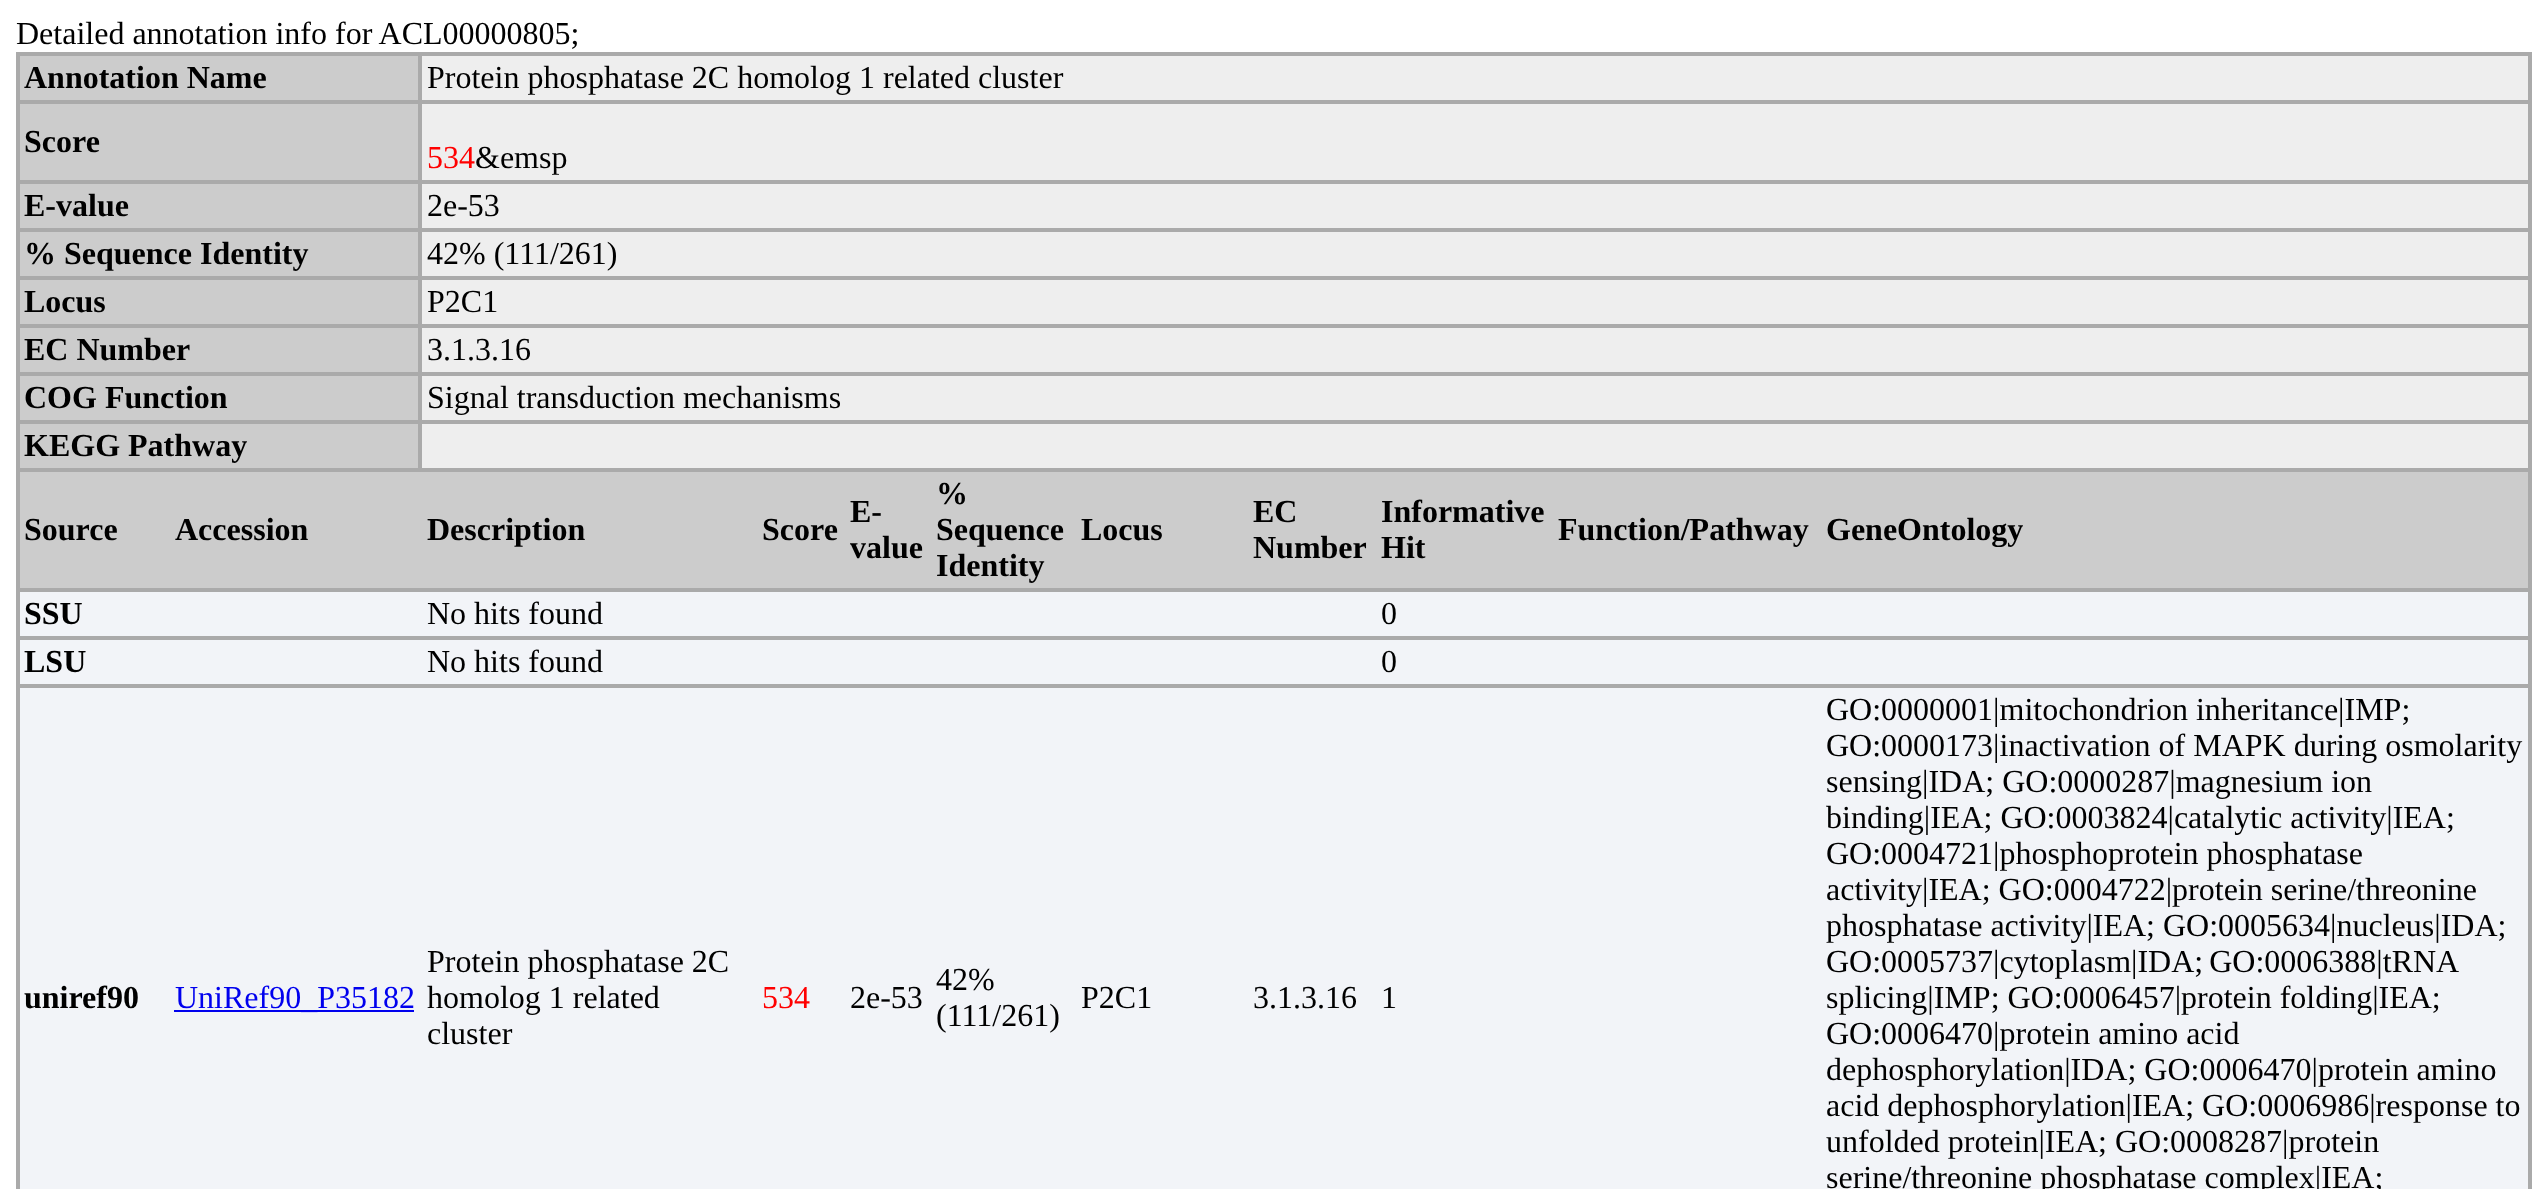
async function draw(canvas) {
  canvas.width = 2548;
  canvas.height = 1189;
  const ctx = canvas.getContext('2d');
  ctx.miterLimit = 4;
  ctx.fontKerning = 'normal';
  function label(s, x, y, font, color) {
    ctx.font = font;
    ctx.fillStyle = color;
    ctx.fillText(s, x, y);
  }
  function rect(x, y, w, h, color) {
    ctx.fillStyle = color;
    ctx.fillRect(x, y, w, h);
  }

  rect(0, 0, 2548, 1189, '#fff');
  label('Detailed annotation info for ACL00000805;', 16, 44, '32px Liberation Serif', '#000');
  rect(16, 52, 2516, 1137, '#aaa');
  rect(20, 56, 398, 44, '#ccc');
  label('Annotation Name', 24, 88, 'bold 32px Liberation Serif', '#000');
  rect(422, 56, 2106, 44, '#eee');
  label('Protein phosphatase 2C homolog 1 related cluster', 427, 88, '32px Liberation Serif', '#000');
  rect(20, 104, 398, 76, '#ccc');
  label('Score', 24, 152, 'bold 32px Liberation Serif', '#000');
  rect(422, 104, 2106, 76, '#eee');
  label('534', 427, 168, '32px Liberation Serif', '#f00');
  label('&emsp', 475, 168, '32px Liberation Serif', '#000');
  rect(20, 184, 398, 44, '#ccc');
  label('E-value', 24, 216, 'bold 32px Liberation Serif', '#000');
  rect(422, 184, 2106, 44, '#eee');
  label('2e-53', 427, 216, '32px Liberation Serif', '#000');
  rect(20, 232, 398, 44, '#ccc');
  label('% Sequence Identity', 24, 264, 'bold 32px Liberation Serif', '#000');
  rect(422, 232, 2106, 44, '#eee');
  label('42% (111/261)', 427, 264, '32px Liberation Serif', '#000');
  rect(20, 280, 398, 44, '#ccc');
  label('Locus', 24, 312, 'bold 32px Liberation Serif', '#000');
  rect(422, 280, 2106, 44, '#eee');
  label('P2C1', 427, 312, '32px Liberation Serif', '#000');
  rect(20, 328, 398, 44, '#ccc');
  label('EC Number', 24, 360, 'bold 32px Liberation Serif', '#000');
  rect(422, 328, 2106, 44, '#eee');
  label('3.1.3.16', 427, 360, '32px Liberation Serif', '#000');
  rect(20, 376, 398, 44, '#ccc');
  label('COG Function', 24, 408, 'bold 32px Liberation Serif', '#000');
  rect(422, 376, 2106, 44, '#eee');
  label('Signal transduction mechanisms', 427, 408, '32px Liberation Serif', '#000');
  rect(20, 424, 398, 44, '#ccc');
  label('KEGG Pathway', 24, 456, 'bold 32px Liberation Serif', '#000');
  rect(422, 424, 2106, 44, '#eee');
  rect(20, 472, 2508, 116, '#ccc');
  label('Source', 24, 540, 'bold 32px Liberation Serif', '#000');
  label('Accession', 175, 540, 'bold 32px Liberation Serif', '#000');
  label('Description', 427, 540, 'bold 32px Liberation Serif', '#000');
  label('Score', 762, 540, 'bold 32px Liberation Serif', '#000');
  label('E-', 850, 522, 'bold 32px Liberation Serif', '#000');
  label('value', 850, 558, 'bold 32px Liberation Serif', '#000');
  label('%', 936, 504, 'bold 32px Liberation Serif', '#000');
  label('Sequence', 936, 540, 'bold 32px Liberation Serif', '#000');
  label('Identity', 936, 576, 'bold 32px Liberation Serif', '#000');
  label('Locus', 1081, 540, 'bold 32px Liberation Serif', '#000');
  label('EC', 1253, 522, 'bold 32px Liberation Serif', '#000');
  label('Number', 1253, 558, 'bold 32px Liberation Serif', '#000');
  label('Informative', 1381, 522, 'bold 32px Liberation Serif', '#000');
  label('Hit', 1381, 558, 'bold 32px Liberation Serif', '#000');
  label('Function/Pathway', 1558, 540, 'bold 32px Liberation Serif', '#000');
  label('GeneOntology', 1826, 540, 'bold 32px Liberation Serif', '#000');
  rect(20, 592, 2508, 44, '#f2f4f8');
  label('SSU', 24, 624, 'bold 32px Liberation Serif', '#000');
  label('No hits found', 427, 624, '32px Liberation Serif', '#000');
  label('0', 1381, 624, '32px Liberation Serif', '#000');
  rect(20, 640, 2508, 44, '#f2f4f8');
  label('LSU', 24, 672, 'bold 32px Liberation Serif', '#000');
  label('No hits found', 427, 672, '32px Liberation Serif', '#000');
  label('0', 1381, 672, '32px Liberation Serif', '#000');
  rect(20, 688, 2508, 501, '#f2f4f8');
  label('uniref90', 24, 1008, 'bold 32px Liberation Serif', '#000');
  rect(174, 1010, 240, 2, '#00e');
  label('UniRef90_P35182', 175, 1008, '32px Liberation Serif', '#00e');
  label('Protein phosphatase 2C', 427, 972, '32px Liberation Serif', '#000');
  label('homolog 1 related', 427, 1008, '32px Liberation Serif', '#000');
  label('cluster', 427, 1044, '32px Liberation Serif', '#000');
  label('534', 762, 1008, '32px Liberation Serif', '#f00');
  label('2e-53', 850, 1008, '32px Liberation Serif', '#000');
  label('42%', 936, 990, '32px Liberation Serif', '#000');
  label('(111/261)', 936, 1026, '32px Liberation Serif', '#000');
  label('P2C1', 1081, 1008, '32px Liberation Serif', '#000');
  label('3.1.3.16', 1253, 1008, '32px Liberation Serif', '#000');
  label('1', 1381, 1008, '32px Liberation Serif', '#000');
  label('GO:0000001|mitochondrion inheritance|IMP;', 1826, 720, '32px Liberation Serif', '#000');
  label('GO:0000173|inactivation of MAPK during osmolarity', 1826, 756, '32px Liberation Serif', '#000');
  label('sensing|IDA; GO:0000287|magnesium ion', 1826, 792, '32px Liberation Serif', '#000');
  label('binding|IEA; GO:0003824|catalytic activity|IEA;', 1826, 828, '32px Liberation Serif', '#000');
  label('GO:0004721|phosphoprotein phosphatase', 1826, 864, '32px Liberation Serif', '#000');
  label('activity|IEA; GO:0004722|protein serine/threonine', 1826, 900, '32px Liberation Serif', '#000');
  label('phosphatase activity|IEA; GO:0005634|nucleus|IDA;', 1826, 936, '32px Liberation Serif', '#000');
  ctx.wordSpacing = '-2px';
  label('GO:0005737|cytoplasm|IDA; GO:0006388|tRNA', 1826, 972, '32px Liberation Serif', '#000');
  ctx.wordSpacing = '0px';
  label('splicing|IMP; GO:0006457|protein folding|IEA;', 1826, 1008, '32px Liberation Serif', '#000');
  label('GO:0006470|protein amino acid', 1826, 1044, '32px Liberation Serif', '#000');
  label('dephosphorylation|IDA; GO:0006470|protein amino', 1826, 1080, '32px Liberation Serif', '#000');
  label('acid dephosphorylation|IEA; GO:0006986|response to', 1826, 1116, '32px Liberation Serif', '#000');
  label('unfolded protein|IEA; GO:0008287|protein', 1826, 1152, '32px Liberation Serif', '#000');
  label('serine/threonine phosphatase complex|IEA;', 1826, 1188, '32px Liberation Serif', '#000');
}

draw(document.querySelector('canvas'));
